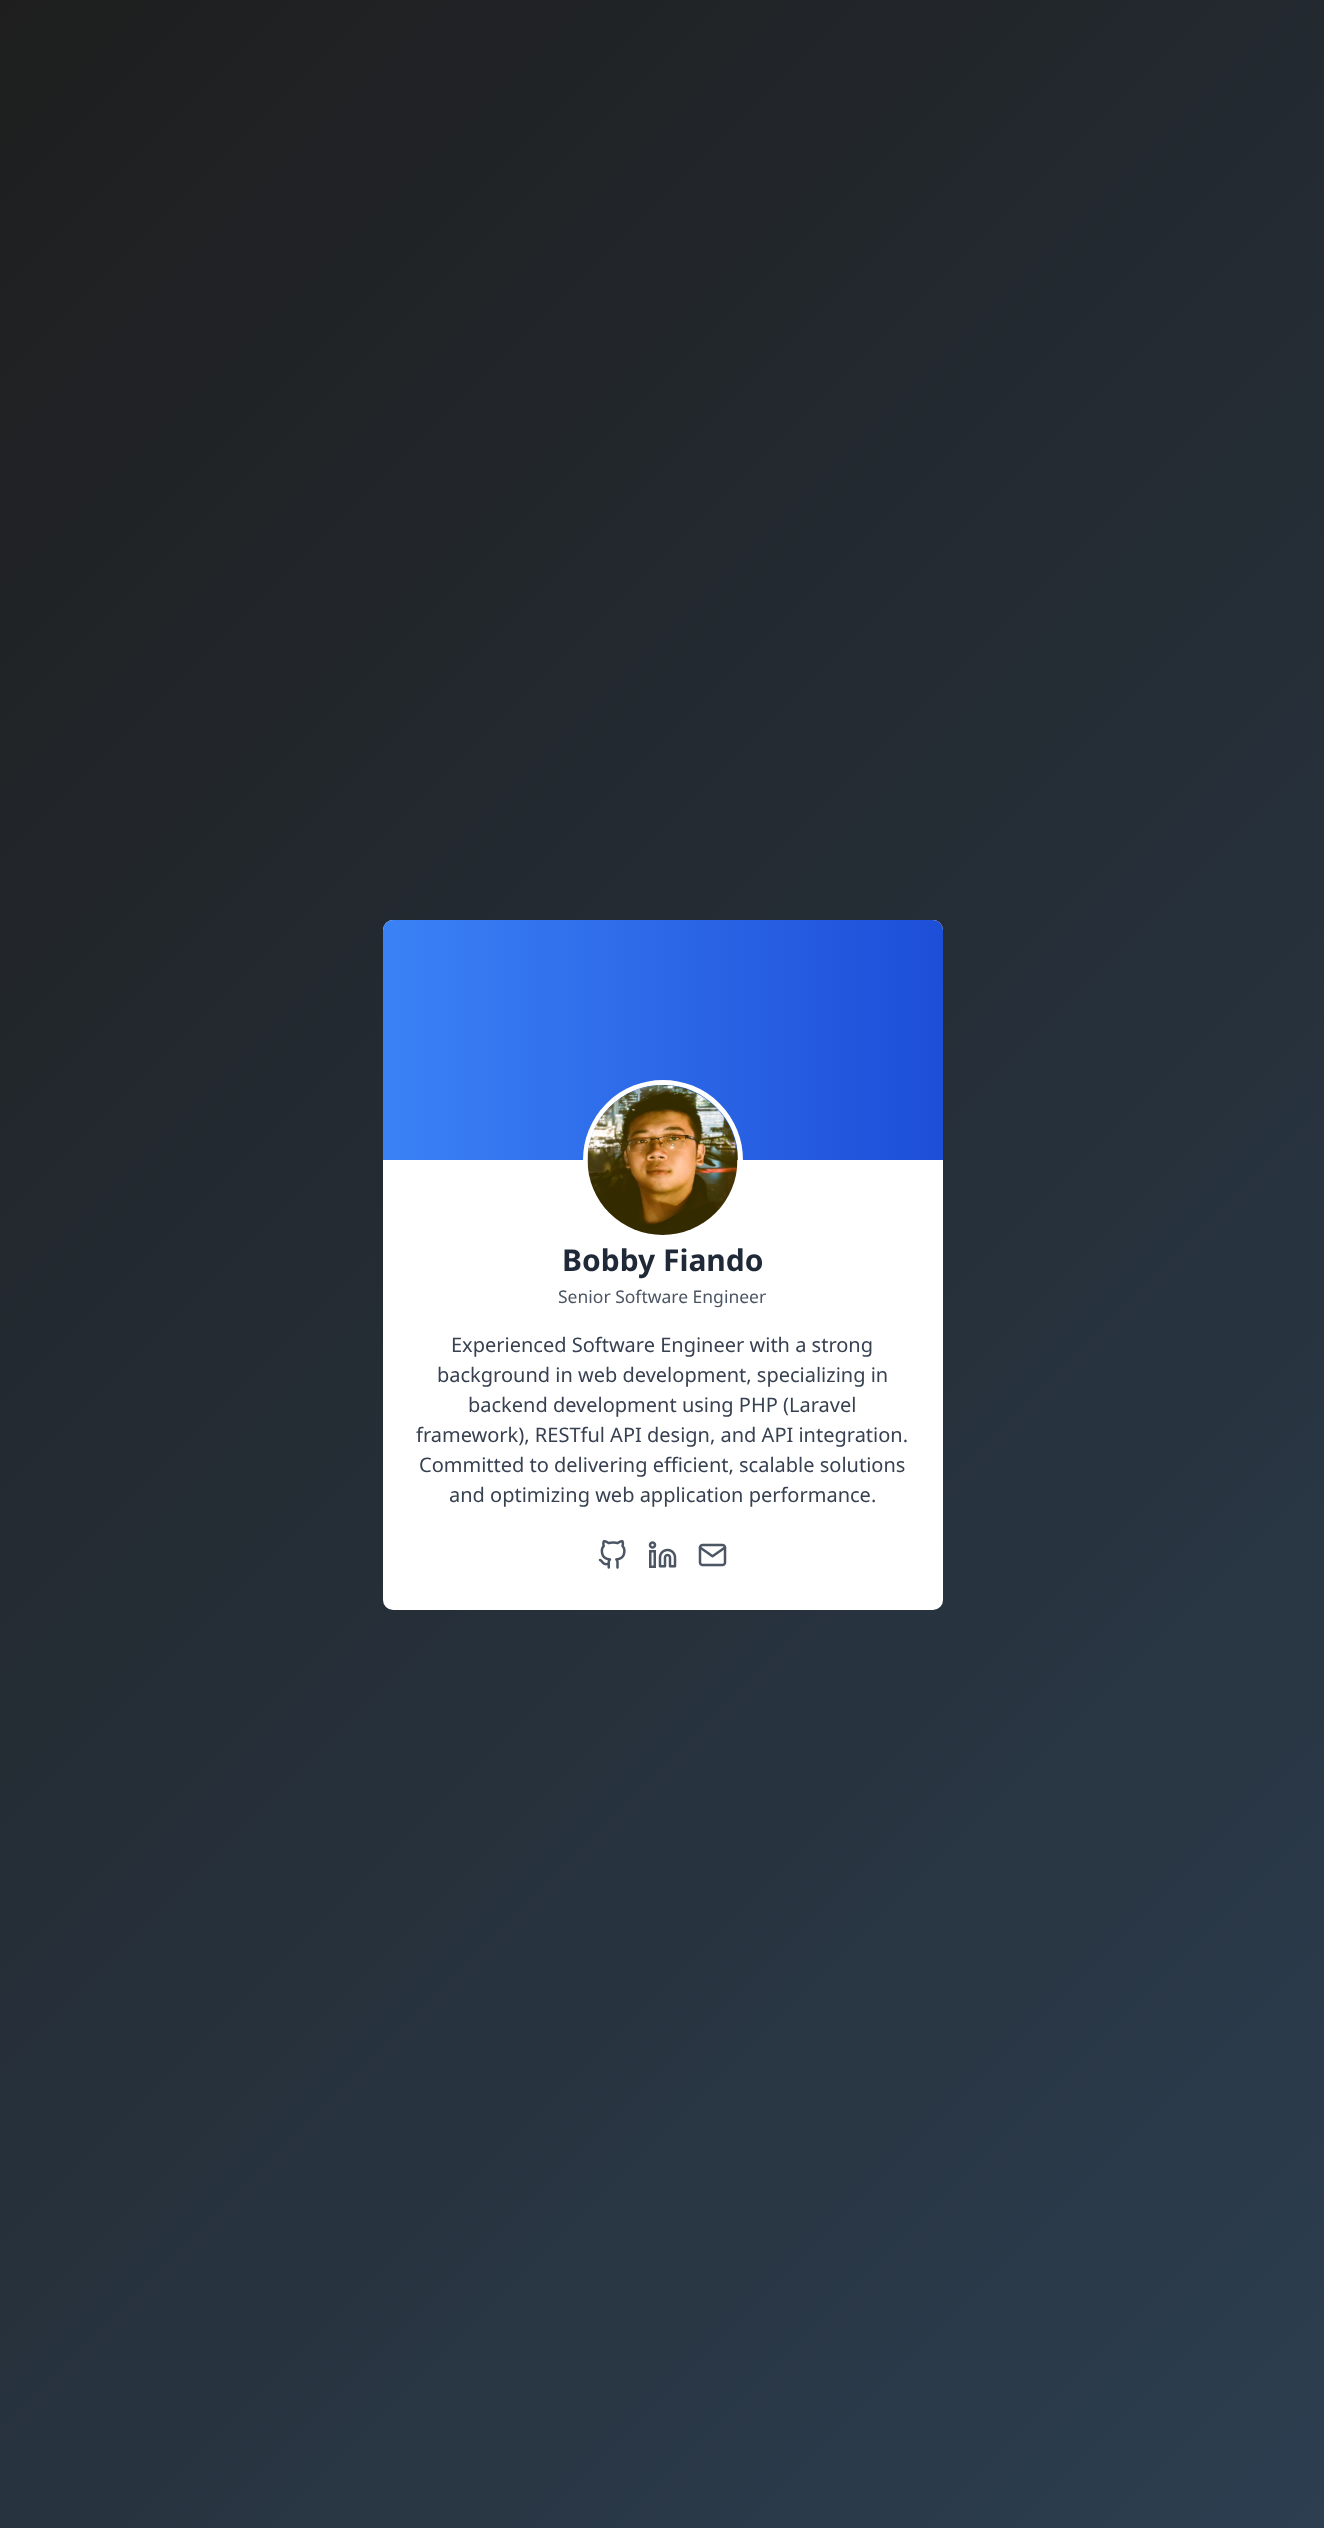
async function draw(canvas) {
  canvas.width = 1324;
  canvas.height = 2528;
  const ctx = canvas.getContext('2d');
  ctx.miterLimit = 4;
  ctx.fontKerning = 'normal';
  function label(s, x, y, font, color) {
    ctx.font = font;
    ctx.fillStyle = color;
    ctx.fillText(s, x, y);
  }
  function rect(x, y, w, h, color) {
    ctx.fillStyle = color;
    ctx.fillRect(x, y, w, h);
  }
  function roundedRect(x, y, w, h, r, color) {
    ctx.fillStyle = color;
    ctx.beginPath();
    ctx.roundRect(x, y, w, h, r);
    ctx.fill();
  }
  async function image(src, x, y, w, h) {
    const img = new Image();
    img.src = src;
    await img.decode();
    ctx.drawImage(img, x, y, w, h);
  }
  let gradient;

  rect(0, 0, 1324, 2528, '#fff');
  gradient = ctx.createLinearGradient(-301, 301, 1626, 2228);
  gradient.addColorStop(0, '#1e1e1e');
  gradient.addColorStop(1, '#2c3e50');
  ctx.fillStyle = gradient;
  ctx.fillRect(0, 0, 1324, 2528);
  roundedRect(383, 920, 560, 690, 10, '#fff');
  gradient = ctx.createLinearGradient(383, 1040, 943, 1040);
  gradient.addColorStop(0, '#3b82f6');
  gradient.addColorStop(1, '#1d4ed8');
  ctx.fillStyle = gradient;
  ctx.beginPath();
  ctx.roundRect(383, 920, 560, 240, [10, 10, 0, 0]);
  ctx.fill();
  ctx.beginPath();
  ctx.arc(663, 1160, 77.5, 0, 2 * Math.PI);
  ctx.strokeStyle = '#fff';
  ctx.lineWidth = 5;
  ctx.stroke();
  await image('assets/img1.png', 587, 1085, 151, 150);
  label('Bobby Fiando', 562, 1271, 'bold 30px Noto Sans', '#1f2937');
  label('Senior Software Engineer', 558, 1303, '17.5px Noto Sans', '#4b5563');
  label('Experienced Software Engineer with a strong', 451, 1352, '20px Noto Sans', '#374151');
  label('background in web development, specializing in', 437, 1382, '20px Noto Sans', '#374151');
  label('backend development using PHP (Laravel', 468, 1412, '20px Noto Sans', '#374151');
  label('framework), RESTful API design, and API integration.', 416, 1442, '20px Noto Sans', '#374151');
  label('Committed to delivering efficient, scalable solutions', 419, 1472, '20px Noto Sans', '#374151');
  label('and optimizing web application performance.', 449, 1502, '20px Noto Sans', '#374151');
  await image('assets/img2.png', 598, 1540, 28, 29);
  await image('assets/img3.png', 648, 1541, 29, 27);
  await image('assets/img4.png', 698, 1543, 29, 24);
}

draw(document.querySelector('canvas'));
